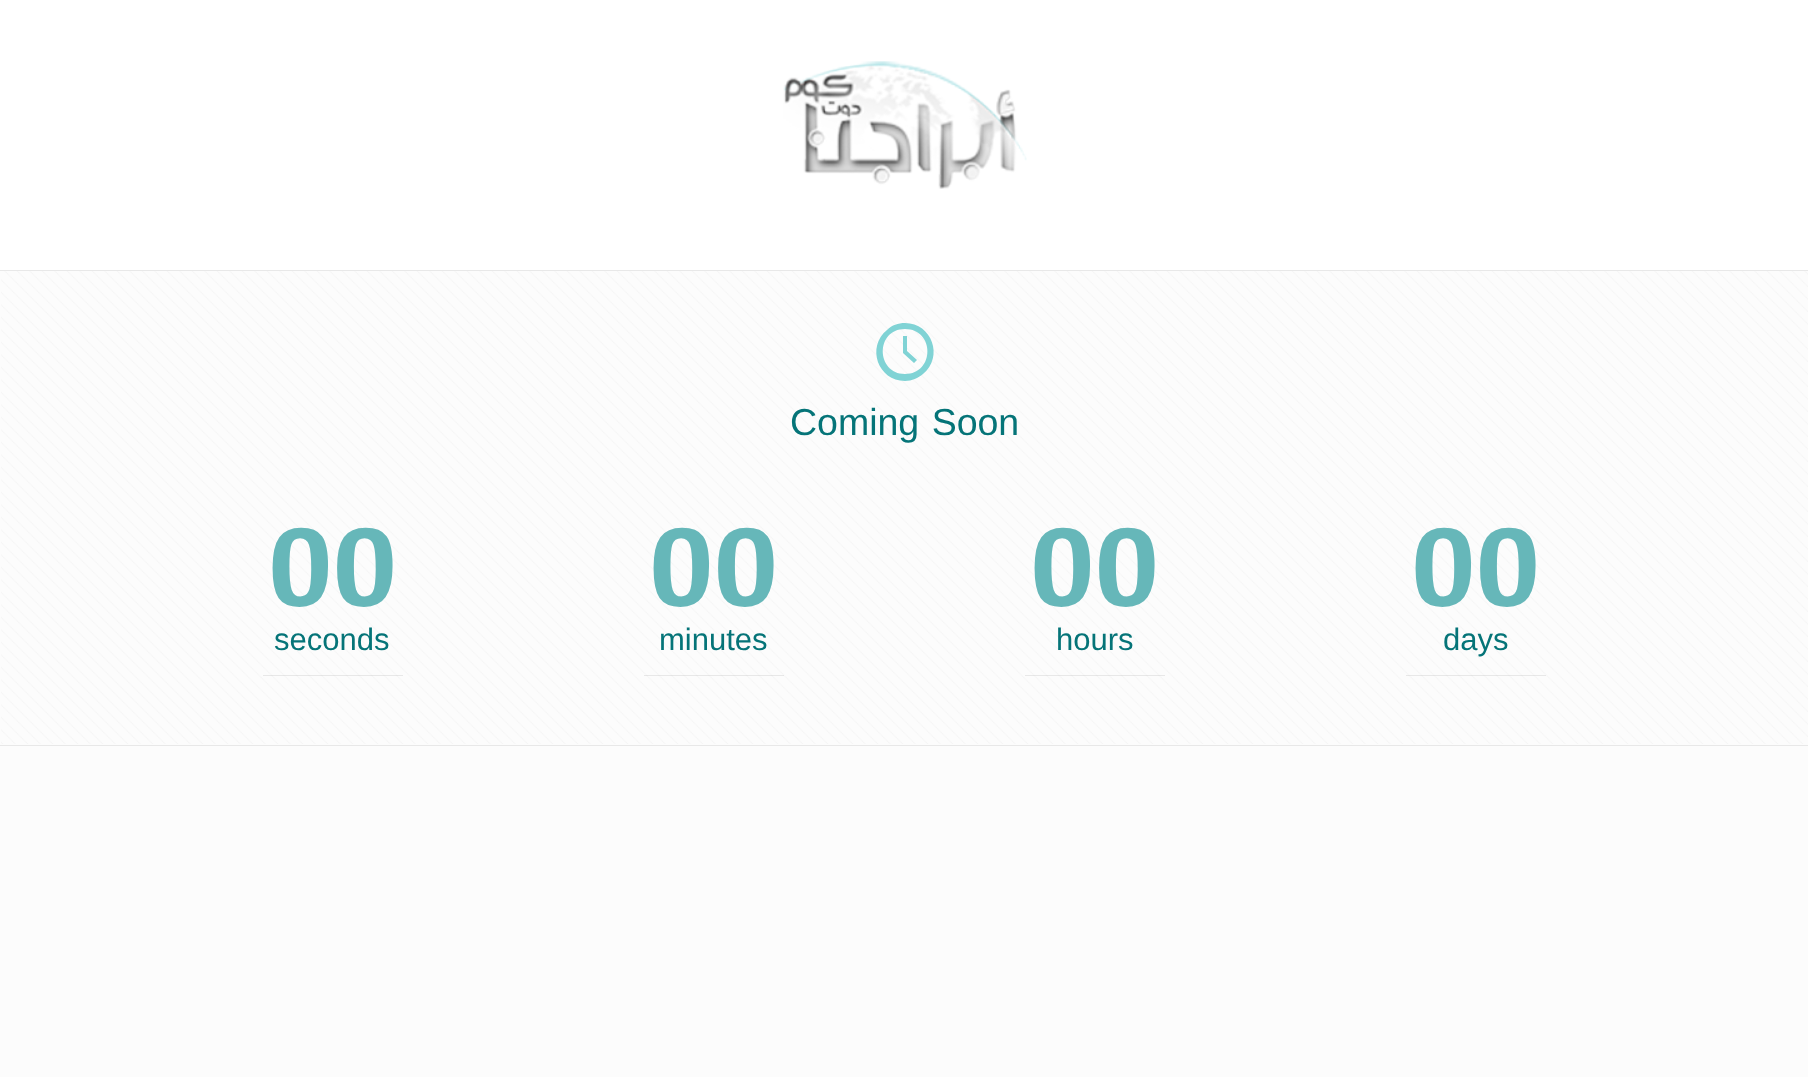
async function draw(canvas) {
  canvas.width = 1808;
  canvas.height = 1077;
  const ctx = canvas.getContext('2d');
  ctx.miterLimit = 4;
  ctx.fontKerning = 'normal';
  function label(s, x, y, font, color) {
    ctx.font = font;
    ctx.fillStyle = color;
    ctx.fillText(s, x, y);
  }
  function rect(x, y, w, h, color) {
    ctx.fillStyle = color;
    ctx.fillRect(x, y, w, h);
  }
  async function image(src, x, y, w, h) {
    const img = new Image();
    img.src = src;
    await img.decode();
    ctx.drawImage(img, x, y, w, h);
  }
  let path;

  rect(0, 0, 1808, 1077, '#fcfcfc');
  rect(263, 675, 140, 1, '#e8e8e8');
  rect(644, 675, 140, 1, '#e8e8e8');
  rect(1025, 675, 140, 1, '#e8e8e8');
  rect(1406, 675, 140, 1, '#e8e8e8');
  rect(0, 0, 1808, 270, '#fff');
  await image('assets/img1.png', 783, 61, 244, 128);
  await image('assets/img2.png', 1, 271, 1807, 473);
  rect(0, 270, 1808, 1, '#e8e8e8');
  ctx.fillStyle = '#80d3d5';
  path = new Path2D('M905 323C932 323 944 357 923 374C918 378 912 381 905 381C878 381 866 347 887 330C892 325 898 323 905 323ZM905 374C935 374 935 329 905 329C875 329 876 374 905 374ZM907 336V351L917 360L914 363L903 353V336Z');
  ctx.fill(path);
  ctx.wordSpacing = '2px';
  label('Coming Soon', 790, 435, '37.5px Liberation Sans', '#057478');
  ctx.wordSpacing = '0px';
  label('00', 268, 606, '112px Patua One', '#66b7b9');
  label('seconds', 274, 650, '31px Liberation Sans', '#057478');
  label('00', 649, 606, '112px Patua One', '#66b7b9');
  label('minutes', 659, 650, '31px Liberation Sans', '#057478');
  label('00', 1030, 606, '112px Patua One', '#66b7b9');
  label('hours', 1056, 650, '31px Liberation Sans', '#057478');
  label('00', 1411, 606, '112px Patua One', '#66b7b9');
  label('days', 1443, 650, '31px Liberation Sans', '#057478');
  rect(0, 745, 1808, 1, '#e8e8e8');
}

draw(document.querySelector('canvas'));
